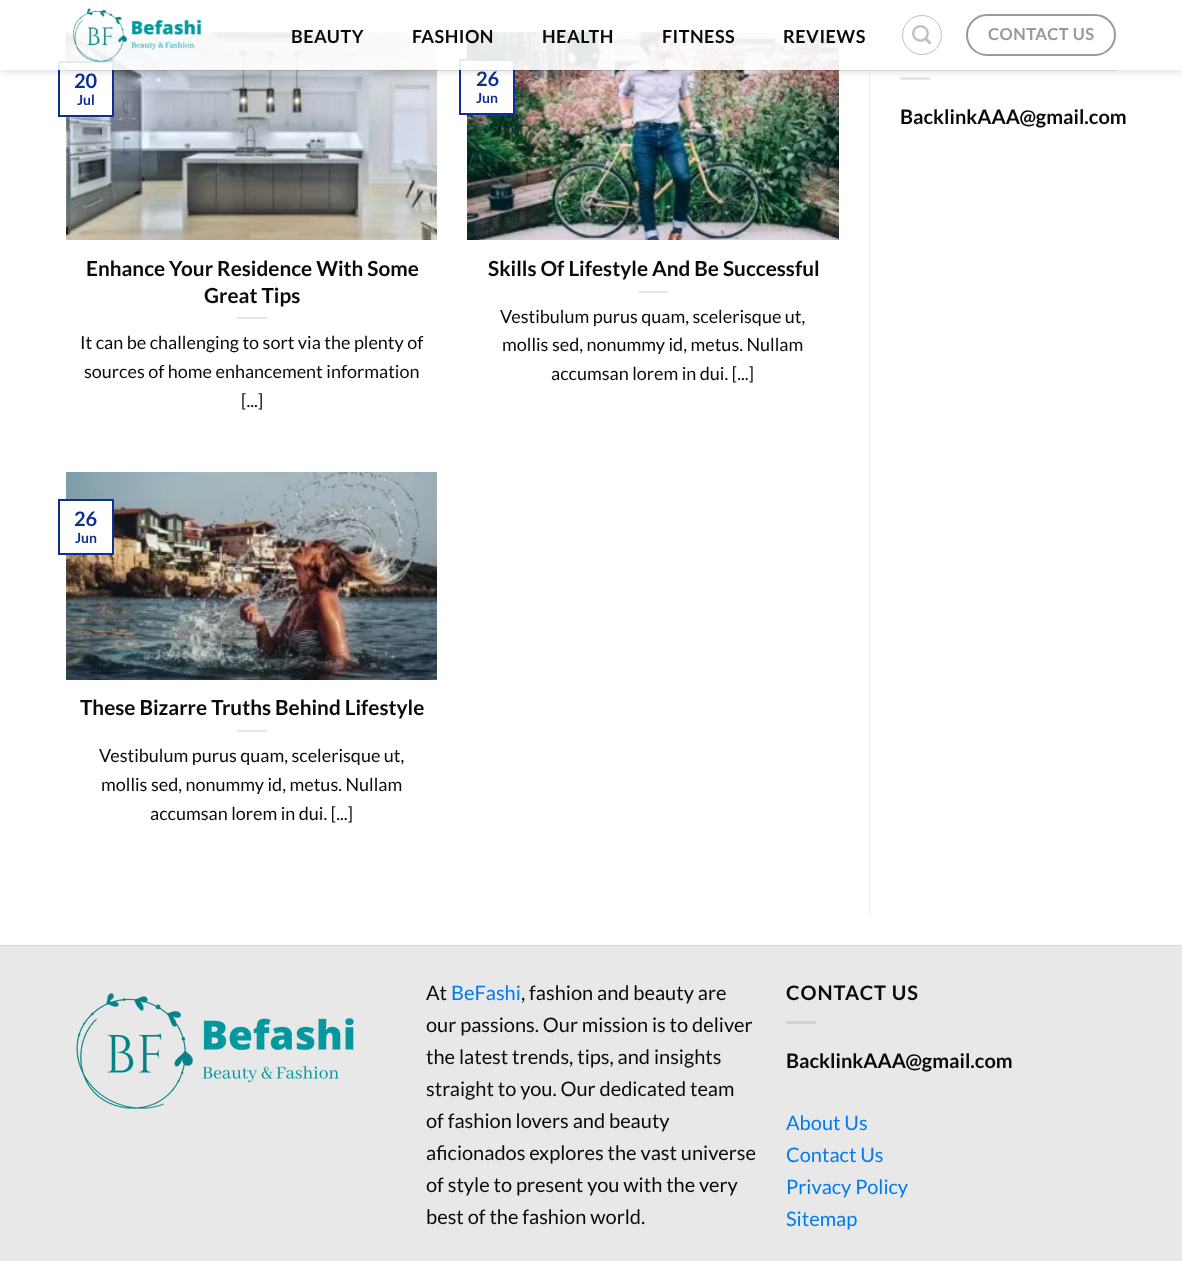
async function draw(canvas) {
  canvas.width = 1182;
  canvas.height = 1261;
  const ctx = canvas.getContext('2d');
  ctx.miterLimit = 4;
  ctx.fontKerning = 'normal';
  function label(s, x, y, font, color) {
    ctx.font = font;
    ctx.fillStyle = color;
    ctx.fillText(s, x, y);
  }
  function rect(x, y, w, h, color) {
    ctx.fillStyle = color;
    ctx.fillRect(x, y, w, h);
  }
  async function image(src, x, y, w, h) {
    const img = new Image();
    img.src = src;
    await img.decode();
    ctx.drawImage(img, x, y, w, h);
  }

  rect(0, 0, 1182, 1261, '#fff');
  await image('assets/img3.png', 66, 32, 371, 208);
  rect(66, 63, 46, 52, '#fff');
  ctx.strokeStyle = '#0d2f95';
  ctx.lineWidth = 2;
  ctx.strokeRect(59, 62, 54, 54);
  await image('assets/img4.png', 467, 32, 372, 208);
  rect(467, 61, 46, 52, '#fff');
  ctx.strokeRect(460, 60, 54, 54);
  rect(869, 32, 1, 883, '#ececec');
  rect(900, 77, 30, 3, '#e6e6e6');
  ctx.save();
  ctx.beginPath();
  ctx.rect(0, 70, 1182, 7);
  ctx.clip();
  ctx.fillStyle = '#00000026';
  ctx.filter = 'blur(5px)';
  ctx.beginPath();
  ctx.rect(1, 1, 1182, 70);
  ctx.fill();
  ctx.filter = 'none';
  ctx.restore();
  rect(58, 32, 812, 38, '#ffffffe6');
  await image('assets/img1.png', 72, 8, 130, 54);
  ctx.letterSpacing = '0.5px';
  label('BEAUTY', 291, 43, 'bold 18px Lato', '#0a0a0a');
  label('FASHION', 412, 43, 'bold 18px Lato', '#0a0a0a');
  label('HEALTH', 542, 43, 'bold 18px Lato', '#0a0a0a');
  label('FITNESS', 662, 43, 'bold 18px Lato', '#0a0a0a');
  label('REVIEWS', 783, 43, 'bold 18px Lato', '#0a0a0a');
  ctx.beginPath();
  ctx.arc(922, 35, 19.5, 0, 2 * Math.PI);
  ctx.strokeStyle = '#c0c0c0';
  ctx.lineWidth = 1;
  ctx.stroke();
  await image('assets/img2.png', 912, 25, 20, 20);
  ctx.beginPath();
  ctx.roundRect(967, 15, 148, 40, 20);
  ctx.strokeStyle = '#999';
  ctx.lineWidth = 2;
  ctx.stroke();
  label('CONTACT US', 988, 40, 'bold 16.5px Lato', '#999');
  rect(66, 70, 1050, 1, '#0a0a0a1a');
  ctx.letterSpacing = '0px';
  label('20', 74, 88, 'bold 20px Lato', '#0d2f95');
  label('Jul', 77, 105, 'bold 14px Lato', '#0d2f95');
  label('Enhance Your Residence With Some', 86, 276, 'bold 20.75px Lato', '#0a0a0a');
  label('Great Tips', 204, 303, 'bold 20.75px Lato', '#0a0a0a');
  rect(237, 317, 30, 2, '#e6e6e6');
  label('It can be challenging to sort via the plenty of', 80, 349, '18px Lato', '#0a0a0a');
  label('sources of home enhancement information', 84, 378, '18px Lato', '#0a0a0a');
  label('[...]', 241, 407, '18px Lato', '#0a0a0a');
  label('26', 476, 86, 'bold 20px Lato', '#0d2f95');
  label('Jun', 476, 103, 'bold 14px Lato', '#0d2f95');
  label('Skills Of Lifestyle And Be Successful', 488, 276, 'bold 20.75px Lato', '#0a0a0a');
  rect(638, 291, 30, 2, '#e6e6e6');
  label('Vestibulum purus quam, scelerisque ut,', 500, 323, '18px Lato', '#0a0a0a');
  label('mollis sed, nonummy id, metus. Nullam', 502, 351, '18px Lato', '#0a0a0a');
  label('accumsan lorem in dui. [...]', 551, 380, '18px Lato', '#0a0a0a');
  await image('assets/img5.png', 66, 472, 371, 208);
  rect(66, 501, 46, 52, '#fff');
  ctx.strokeStyle = '#0d2f95';
  ctx.strokeRect(59, 500, 54, 54);
  label('26', 74, 526, 'bold 20px Lato', '#0d2f95');
  label('Jun', 75, 543, 'bold 14px Lato', '#0d2f95');
  label('These Bizarre Truths Behind Lifestyle', 80, 715, 'bold 20.75px Lato', '#0a0a0a');
  rect(237, 730, 30, 2, '#e6e6e6');
  label('Vestibulum purus quam, scelerisque ut,', 99, 762, '18px Lato', '#0a0a0a');
  label('mollis sed, nonummy id, metus. Nullam', 101, 791, '18px Lato', '#0a0a0a');
  label('accumsan lorem in dui. [...]', 150, 820, '18px Lato', '#0a0a0a');
  label('BacklinkAAA@gmail.com', 900, 124, 'bold 20px Lato', '#0a0a0a');
  rect(0, 946, 1182, 315, '#e8e8e8');
  rect(0, 945, 1182, 1, '#dcdcdc');
  await image('assets/img6.png', 76, 993, 278, 116);
  label('At', 426, 1000, '20px Lato', '#0a0a0a');
  label('BeFashi', 451, 1000, '20px Lato', '#037bec');
  label(', fashion and beauty are', 521, 1000, '20px Lato', '#0a0a0a');
  label('our passions. Our mission is to deliver', 426, 1032, '20px Lato', '#0a0a0a');
  label('the latest trends, tips, and insights', 426, 1064, '20px Lato', '#0a0a0a');
  label('straight to you. Our dedicated team', 426, 1096, '20px Lato', '#0a0a0a');
  label('of fashion lovers and beauty', 426, 1128, '20px Lato', '#0a0a0a');
  label('aficionados explores the vast universe', 426, 1160, '20px Lato', '#0a0a0a');
  label('of style to present you with the very', 426, 1192, '20px Lato', '#0a0a0a');
  label('best of the fashion world.', 426, 1224, '20px Lato', '#0a0a0a');
  ctx.letterSpacing = '1px';
  label('CONTACT US', 786, 1000, 'bold 20px Lato', '#0a0a0a');
  rect(786, 1021, 30, 3, '#d1d1d1');
  ctx.letterSpacing = '0px';
  label('BacklinkAAA@gmail.com', 786, 1068, 'bold 20px Lato', '#0a0a0a');
  label('About Us', 786, 1130, '20px Lato', '#037bec');
  label('Contact Us', 786, 1162, '20px Lato', '#037bec');
  label('Privacy Policy', 786, 1194, '20px Lato', '#037bec');
  label('Sitemap', 786, 1226, '20px Lato', '#037bec');
}

draw(document.querySelector('canvas'));
